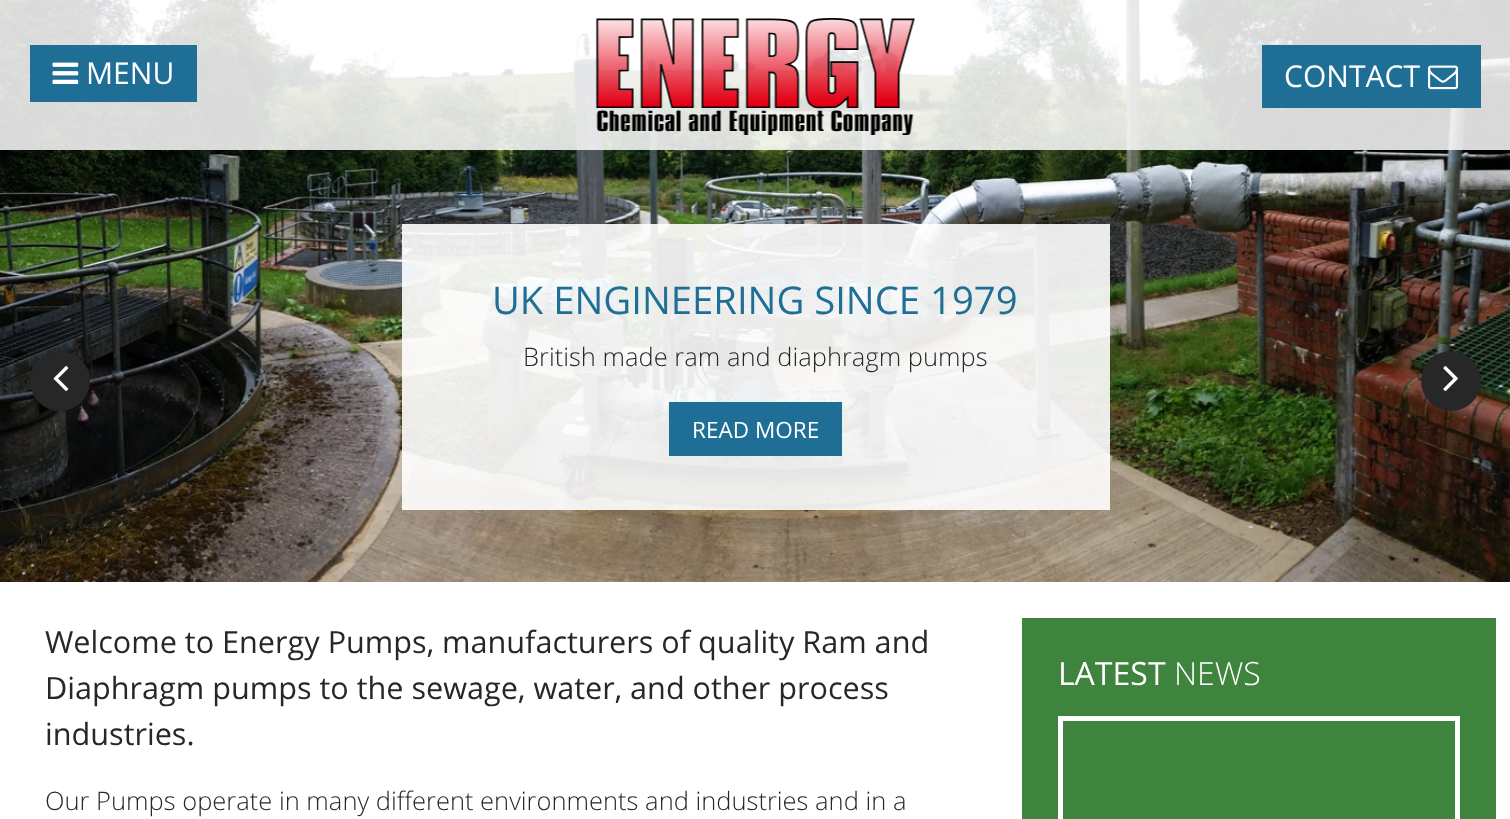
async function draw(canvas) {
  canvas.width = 1510;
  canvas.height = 819;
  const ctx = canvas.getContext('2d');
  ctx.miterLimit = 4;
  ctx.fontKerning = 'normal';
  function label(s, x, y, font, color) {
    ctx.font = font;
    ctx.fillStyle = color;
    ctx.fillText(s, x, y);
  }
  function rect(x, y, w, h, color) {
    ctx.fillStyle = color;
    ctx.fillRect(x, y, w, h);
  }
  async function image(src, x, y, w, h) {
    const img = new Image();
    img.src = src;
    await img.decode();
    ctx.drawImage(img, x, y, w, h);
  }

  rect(0, 0, 1510, 819, '#fff');
  await image('assets/img5.png', 0, 0, 1510, 582);
  rect(0, 0, 1510, 150, '#ffffffd9');
  rect(30, 45, 167, 57, '#1f6e96');
  await image('assets/img1.png', 52, 62, 27, 22);
  label('MENU', 86, 84, '30px Open Sans', '#fff');
  await image('assets/img2.png', 595, 18, 321, 117);
  rect(1262, 45, 219, 63, '#1f6e96');
  label('CONTACT', 1284, 87, '30px Open Sans', '#fff');
  await image('assets/img3.png', 1428, 65, 30, 25);
  ctx.fillStyle = '#272727';
  ctx.beginPath();
  ctx.arc(60, 381, 30, 0, 2 * Math.PI);
  ctx.fill();
  await image('assets/img4.png', 53, 366, 16, 25);
  rect(402, 224, 708, 286, '#ffffffe6');
  label('UK ENGINEERING SINCE 1979', 492, 314, '38.25px Open Sans', '#1f6e96');
  label('British made ram and diaphragm pumps', 523, 366, '300 25.5px Open Sans', '#272727');
  rect(669, 402, 173, 54, '#1f6e96');
  label('READ MORE', 692, 438, '22.5px Open Sans', '#fff');
  ctx.fillStyle = '#272727';
  ctx.beginPath();
  ctx.arc(1451, 381, 30, 0, 2 * Math.PI);
  ctx.fill();
  await image('assets/img6.png', 1443, 366, 15, 25);
  label('Welcome to Energy Pumps, manufacturers of quality Ram and', 45, 653, '30.6px Open Sans', '#272727');
  label('Diaphragm pumps to the sewage, water, and other process', 45, 699, '30.6px Open Sans', '#272727');
  label('industries.', 45, 745, '30.6px Open Sans', '#272727');
  label('Our Pumps operate in many different environments and industries and in a', 45, 810, '300 25.5px Open Sans', '#272727');
  rect(1022, 618, 474, 201, '#3e833e');
  label('LATEST', 1058, 685, '32px Open Sans', '#fff');
  label('NEWS', 1174, 685, '300 32px Open Sans', '#fff');
  ctx.strokeStyle = '#fff';
  ctx.lineWidth = 5;
  ctx.strokeRect(1060.5, 718.5, 397, 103);
}

draw(document.querySelector('canvas'));
